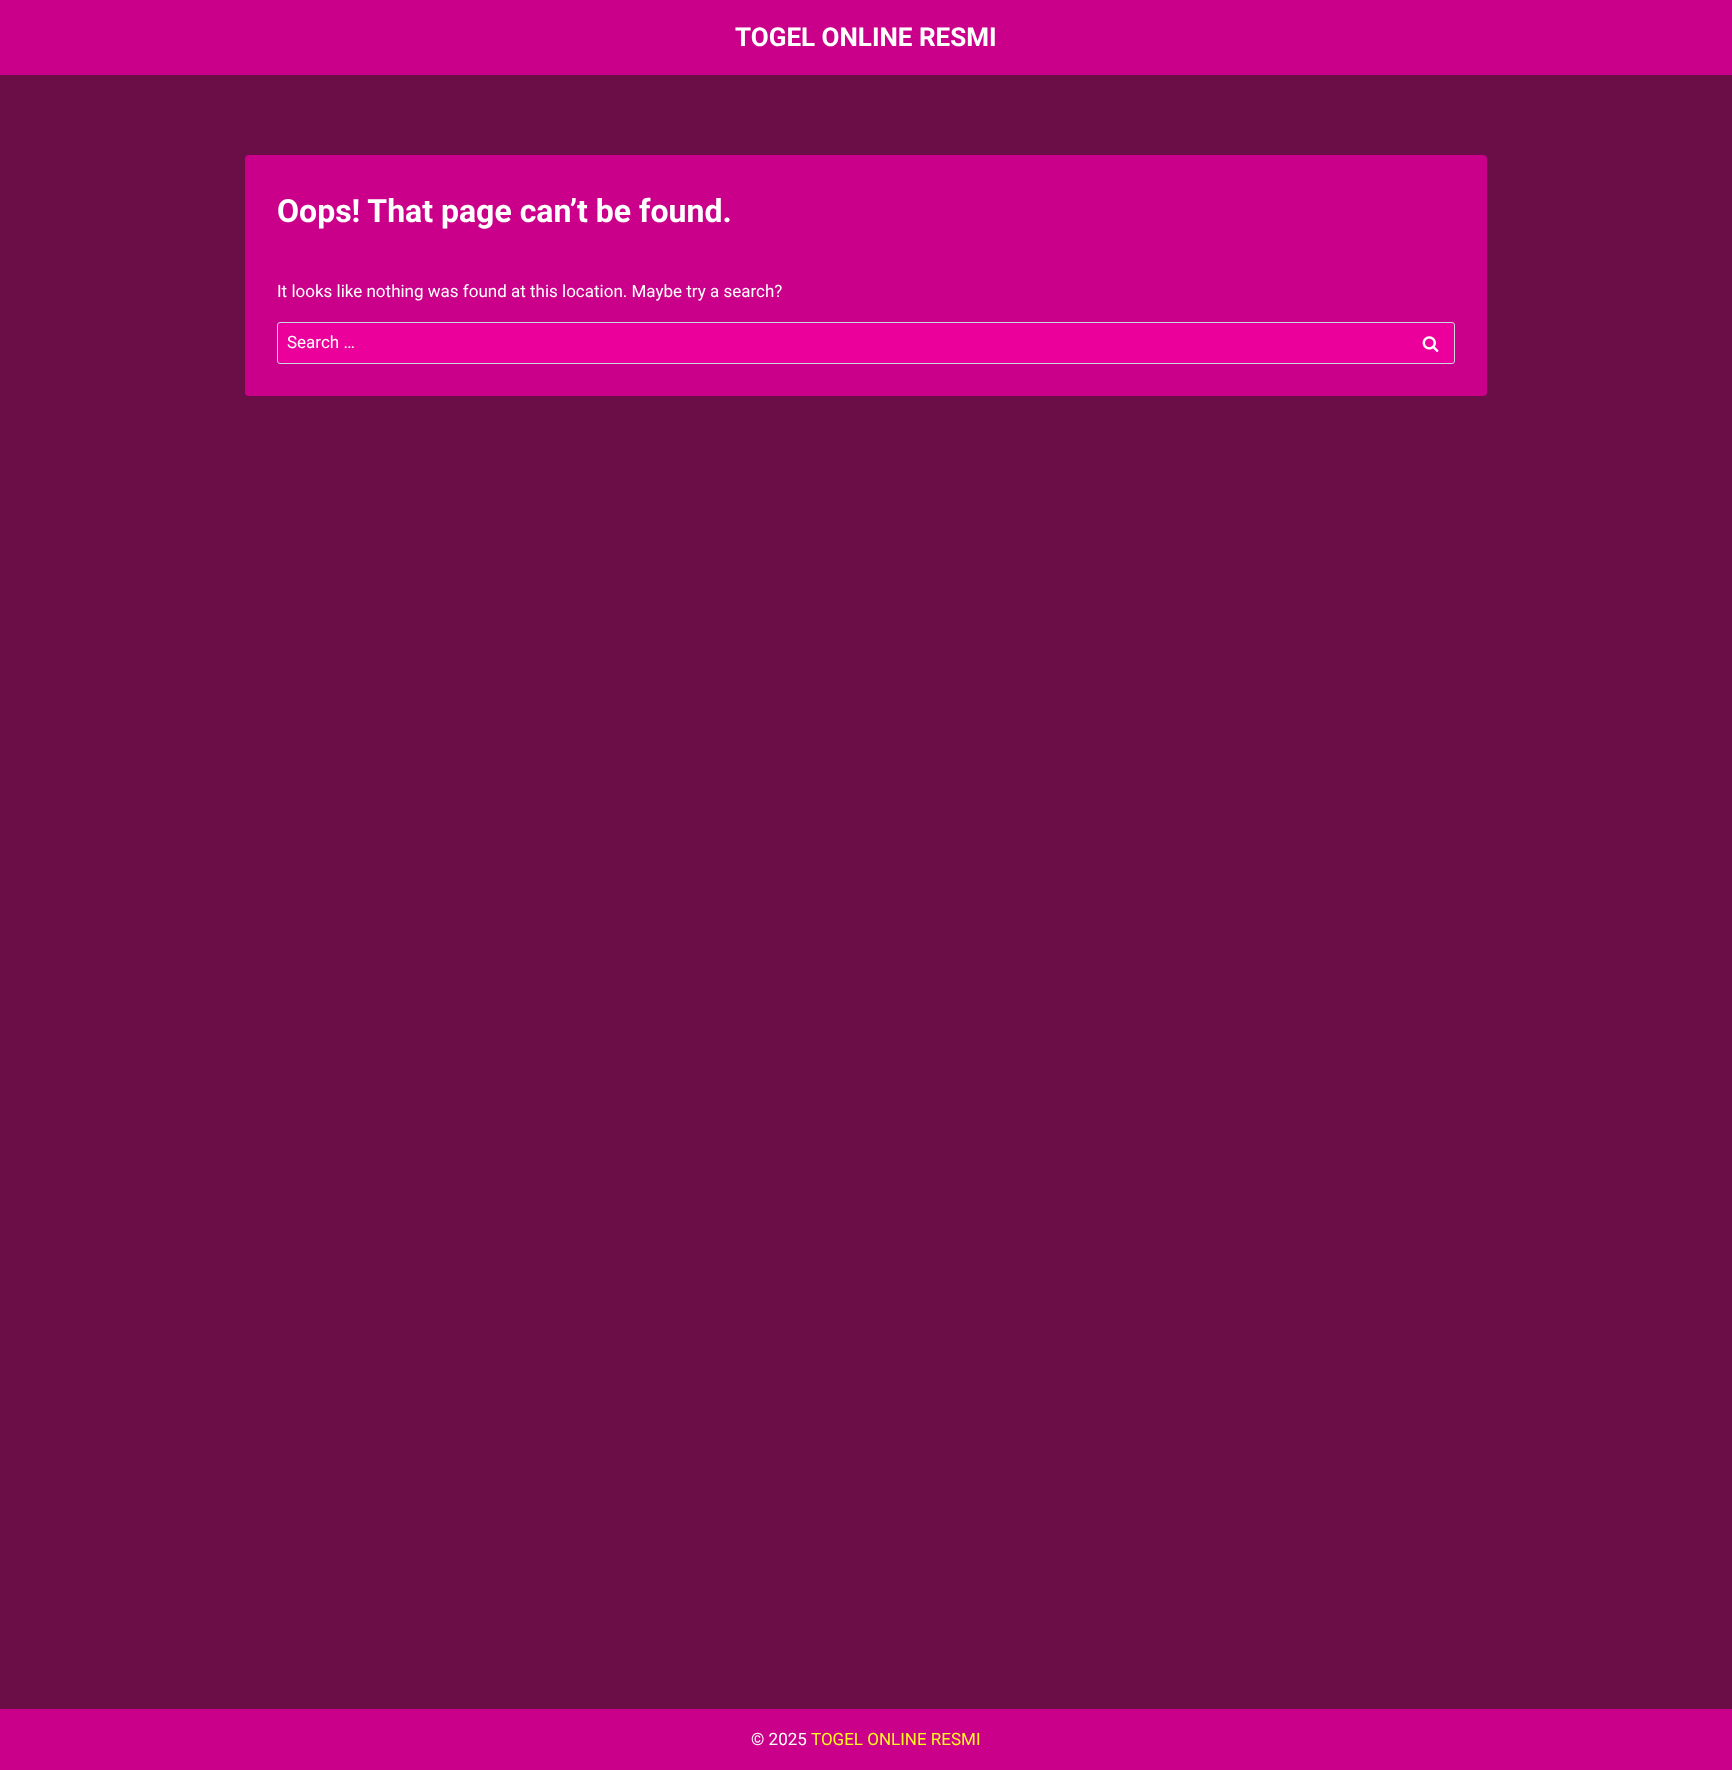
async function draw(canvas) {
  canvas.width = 1732;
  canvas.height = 1770;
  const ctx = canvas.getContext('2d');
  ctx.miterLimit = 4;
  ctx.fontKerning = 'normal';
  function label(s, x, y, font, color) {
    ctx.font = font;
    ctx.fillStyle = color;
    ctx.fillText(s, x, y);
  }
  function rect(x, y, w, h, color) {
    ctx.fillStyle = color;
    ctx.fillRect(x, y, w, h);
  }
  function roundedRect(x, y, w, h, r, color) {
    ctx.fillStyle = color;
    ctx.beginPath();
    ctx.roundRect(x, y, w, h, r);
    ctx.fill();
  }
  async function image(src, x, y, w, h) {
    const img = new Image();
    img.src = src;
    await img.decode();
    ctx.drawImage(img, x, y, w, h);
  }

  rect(0, 0, 1732, 1770, '#6b0d46');
  rect(0, 0, 1732, 75, '#cb008a');
  label('TOGEL ONLINE RESMI', 735, 46, 'bold 26px Roboto', '#fff');
  roundedRect(245, 155, 1242, 241, 4, '#cb008a');
  label('Oops! That page can’t be found.', 277, 222, 'bold 32px Roboto', '#fff');
  label('It looks like nothing was found at this location. Maybe try a search?', 277, 297, '17px Roboto', '#fff');
  ctx.fillStyle = '#ec009c';
  ctx.beginPath();
  ctx.roundRect(277.5, 322.5, 1177, 41, 2.5);
  ctx.fill();
  ctx.strokeStyle = '#cbd5e0';
  ctx.stroke();
  label('Search …', 287, 348, '17px Roboto', '#fff');
  await image('assets/img1.png', 1422, 336, 17, 16);
  rect(0, 1709, 1732, 61, '#cb008a');
  label('© 2025', 751, 1745, '17px Roboto', '#fff');
  label('TOGEL ONLINE RESMI', 811, 1745, '17px Roboto', '#fff91e');
}

draw(document.querySelector('canvas'));
